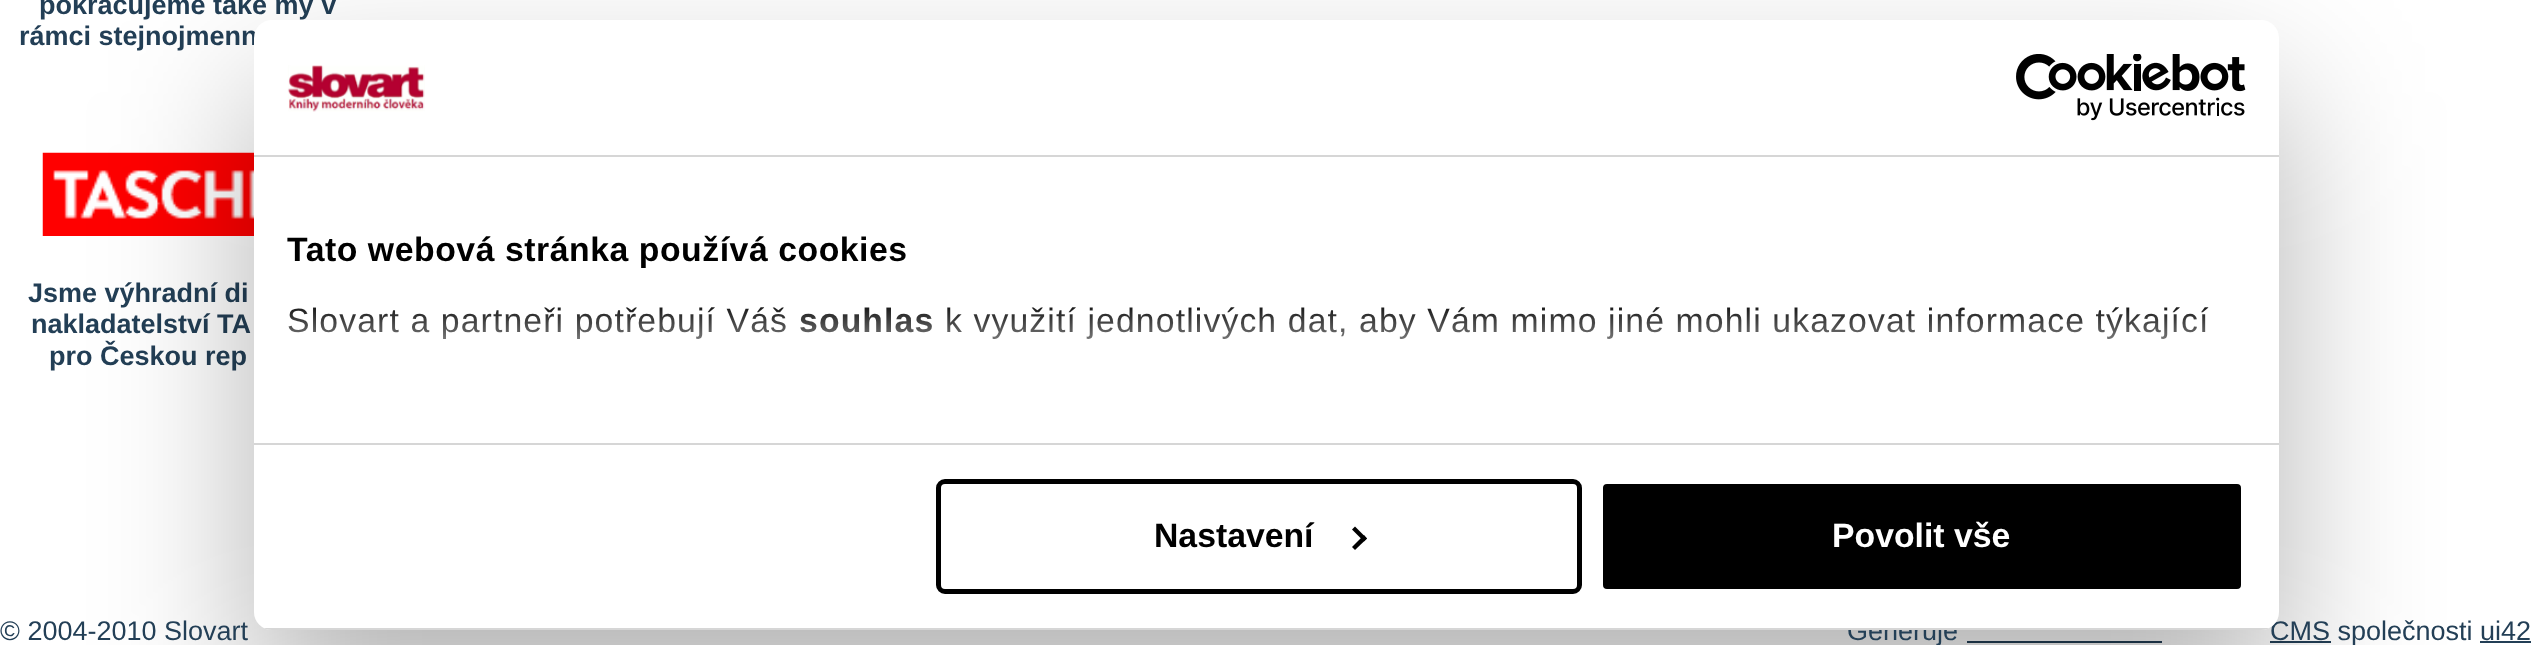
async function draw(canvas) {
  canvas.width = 2531;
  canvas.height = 645;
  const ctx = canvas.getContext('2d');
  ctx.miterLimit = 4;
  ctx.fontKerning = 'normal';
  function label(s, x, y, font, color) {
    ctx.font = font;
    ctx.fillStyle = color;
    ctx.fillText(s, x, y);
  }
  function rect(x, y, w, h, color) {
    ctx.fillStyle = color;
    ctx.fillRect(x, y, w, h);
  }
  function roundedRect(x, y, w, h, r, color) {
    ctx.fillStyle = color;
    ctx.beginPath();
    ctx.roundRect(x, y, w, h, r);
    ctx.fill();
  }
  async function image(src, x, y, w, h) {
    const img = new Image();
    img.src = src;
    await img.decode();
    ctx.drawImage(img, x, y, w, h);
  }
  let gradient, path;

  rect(0, 0, 2531, 645, '#fff');
  label('pokračujeme také my v', 39, 14, 'bold 27px Liberation Sans', '#233f56');
  label('rámci stejnojmenn', 19, 45, 'bold 27px Liberation Sans', '#233f56');
  await image('assets/img1.png', 42, 152, 212, 84);
  label('Jsme výhradní di', 28, 302, 'bold 27px Liberation Sans', '#233f56');
  label('nakladatelství TA', 31, 333, 'bold 27px Liberation Sans', '#233f56');
  label('pro Českou rep', 49, 365, 'bold 27px Liberation Sans', '#233f56');
  rect(1967, 641, 195, 2, '#233f56');
  rect(2270, 641, 61, 2, '#233f56');
  rect(2480, 641, 51, 2, '#233f56');
  ctx.fillStyle = '#0000004d';
  ctx.filter = 'blur(76.5px)';
  ctx.beginPath();
  ctx.roundRect(254, 92, 2025, 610, 18);
  ctx.fill();
  ctx.filter = 'none';
  label('Generuje', 1847, 640, '27px Liberation Sans', '#233f56');
  label('CMS společnosti ui42', 2270, 640, '27px Liberation Sans', '#233f56');
  roundedRect(254, 20, 2025, 610, 18, '#fff');
  rect(254, 155, 2025, 2, '#d6d6d6');
  await image('assets/img2.png', 287, 65, 138, 47);
  await image('assets/img3.png', 2016, 54, 230, 67);
  rect(254, 443, 2025, 2, '#d6d6d6');
  ctx.letterSpacing = '0.55px';
  label('Tato webová stránka používá cookies', 287, 261, 'bold 33.75px Liberation Sans', '#000');
  ctx.letterSpacing = '1.12px';
  label('Slovart a partneři potřebují Váš', 287, 332, '33.75px Liberation Sans', '#000');
  label('souhlas', 799, 332, 'bold 33.75px Liberation Sans', '#000');
  label('k využití jednotlivých dat, aby Vám mimo jiné mohli ukazovat informace týkající', 945, 332, '33.75px Liberation Sans', '#000');
  gradient = ctx.createLinearGradient(1252, 442, 1252, 298);
  gradient.addColorStop(0, '#fff');
  gradient.addColorStop(0.5, '#ffffffcc');
  gradient.addColorStop(1, '#ffffff00');
  ctx.fillStyle = gradient;
  ctx.fillRect(288, 307, 1921, 32);
  ctx.save();
  ctx.beginPath();
  ctx.roundRect(254, 20, 2025, 610, 18);
  ctx.clip();
  rect(264, 628, 2005, 2, '#d6d6d6');
  ctx.restore();
  ctx.beginPath();
  ctx.roundRect(938.5, 481.5, 641, 110, 6.5);
  ctx.strokeStyle = '#000';
  ctx.lineWidth = 5;
  ctx.stroke();
  ctx.letterSpacing = '0px';
  label('Nastavení', 1154, 547, 'bold 33.75px Liberation Sans', '#000');
  path = new Path2D('M1355 526.5L1367 538.5L1364 541.5L1352 529.5Z');
  ctx.fill(path);
  path = new Path2D('M1364 535L1367 538.5L1355 550L1352 547Z');
  ctx.fill(path);
  ctx.beginPath();
  ctx.roundRect(1600.5, 481.5, 643, 110, 6.5);
  ctx.fill();
  ctx.strokeStyle = '#fff';
  ctx.stroke();
  label('Povolit vše', 1832, 547, 'bold 33.75px Liberation Sans', '#fff');
  label('© 2004-2010 Slovart', 0, 640, '27px Liberation Sans', '#233f56');
}

draw(document.querySelector('canvas'));
